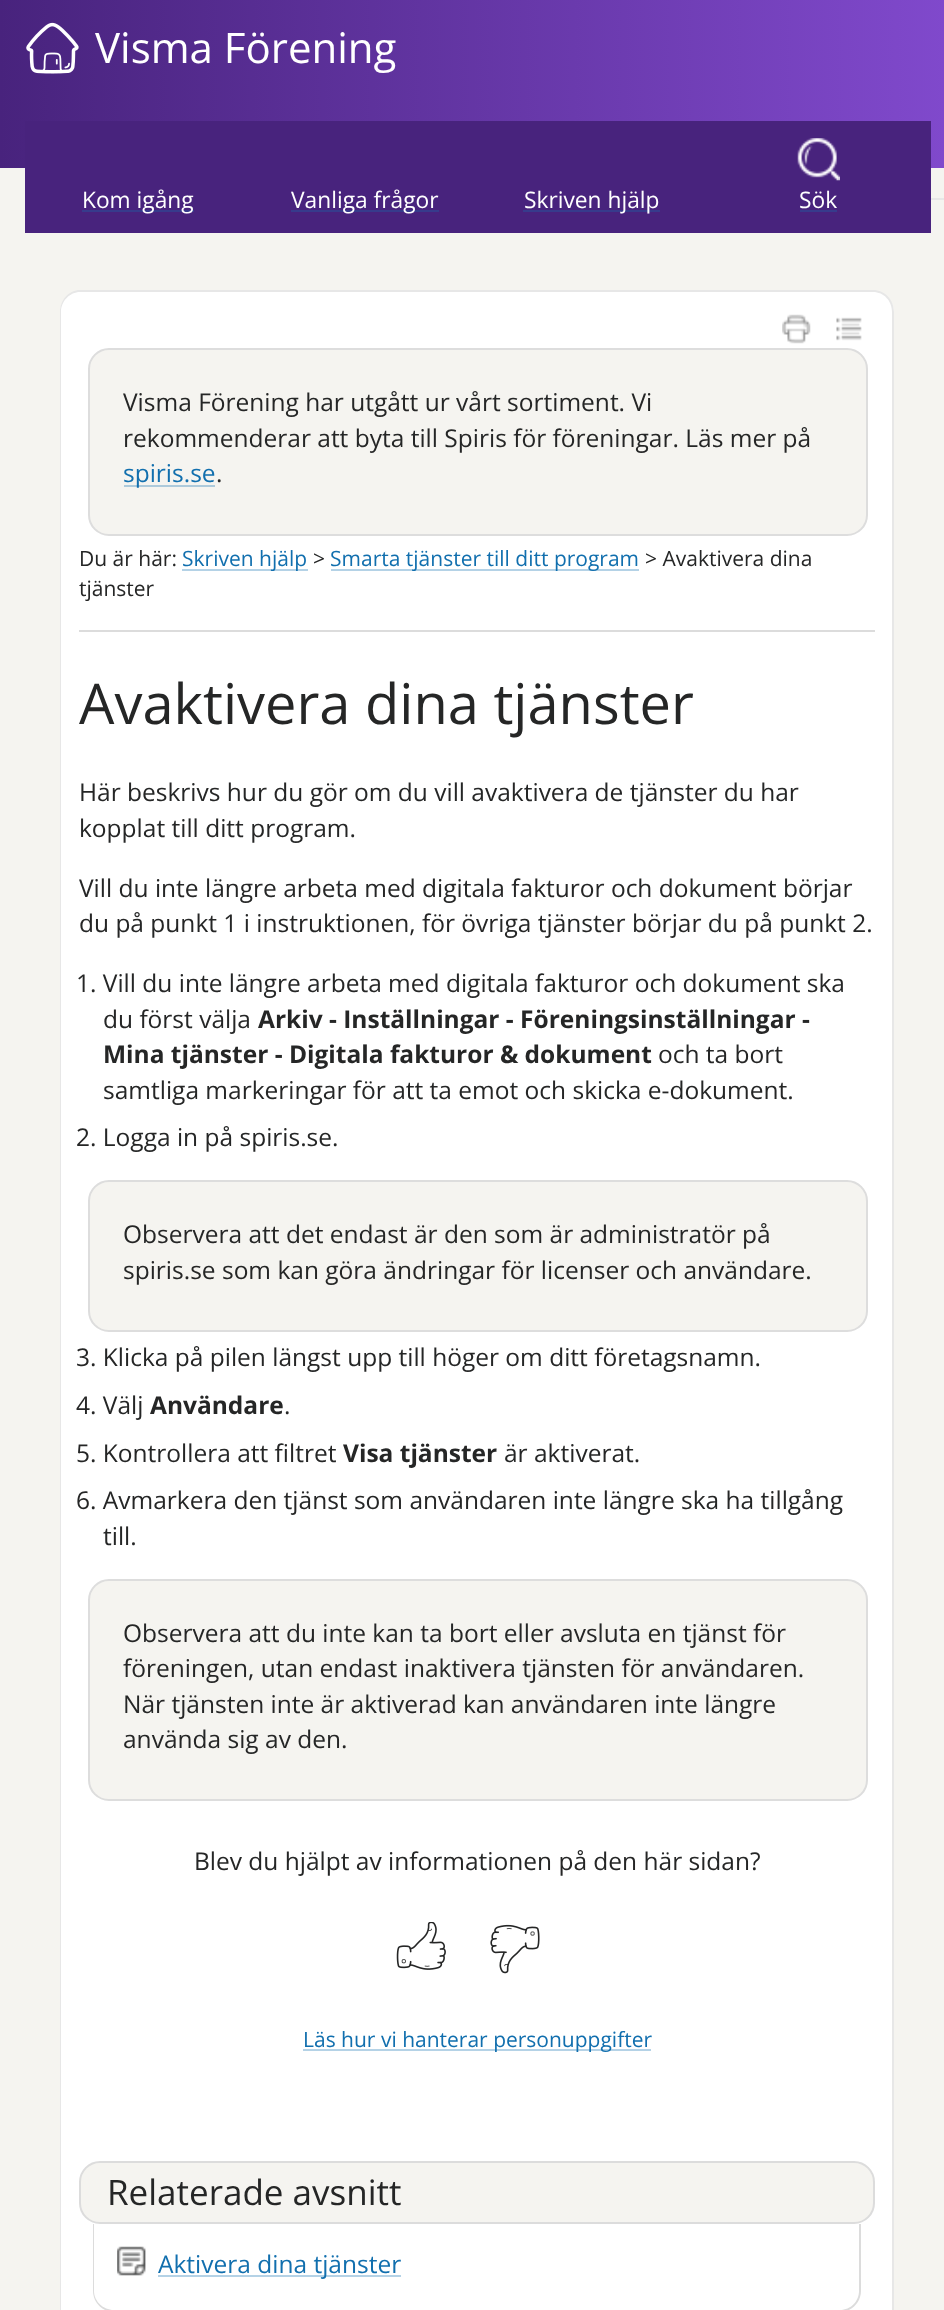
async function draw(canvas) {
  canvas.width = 944;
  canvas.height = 2310;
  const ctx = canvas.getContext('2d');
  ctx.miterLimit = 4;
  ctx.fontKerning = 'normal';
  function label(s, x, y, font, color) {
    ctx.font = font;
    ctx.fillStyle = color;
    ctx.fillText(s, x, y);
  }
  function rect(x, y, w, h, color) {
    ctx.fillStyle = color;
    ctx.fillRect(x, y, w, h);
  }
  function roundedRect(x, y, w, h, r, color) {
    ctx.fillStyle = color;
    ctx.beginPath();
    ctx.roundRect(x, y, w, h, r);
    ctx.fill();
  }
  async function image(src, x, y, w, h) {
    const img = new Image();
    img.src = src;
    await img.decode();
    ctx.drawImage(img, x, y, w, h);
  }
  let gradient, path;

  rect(0, 0, 944, 2310, '#f5f4f0');
  gradient = ctx.createLinearGradient(0, 84, 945, 84);
  gradient.addColorStop(0, '#48237d');
  gradient.addColorStop(1, '#8049cc');
  ctx.fillStyle = gradient;
  ctx.fillRect(0, 0, 944, 168);
  rect(931, 198, 13, 2, '#e7e7e7');
  await image('assets/img1.png', 26, 22, 53, 52);
  label('Visma Förening', 95, 63, '42px Open Sans', '#fff');
  rect(25, 121, 906, 112, '#48237d');
  rect(82, 210, 112, 2, '#373b8c');
  label('Kom igång', 82, 208, '22.75px Open Sans', '#fff');
  rect(291, 210, 148, 2, '#373b8c');
  label('Vanliga frågor', 291, 208, '22.75px Open Sans', '#fff');
  rect(523, 210, 137, 2, '#373b8c');
  label('Skriven hjälp', 524, 208, '22.75px Open Sans', '#fff');
  await image('assets/img2.png', 797, 138, 43, 43);
  label('Sök', 799, 208, '22.75px Open Sans', '#fff');
  rect(800, 210, 37, 2, '#373b8c');
  roundedRect(60, 291, 834, 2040, 21, '#fff');
  ctx.fillStyle = '#e7e7e7';
  path = new Path2D('M80 290H873C885 290 894 300 894 312V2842C894 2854 885 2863 873 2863H80C69 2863 60 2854 60 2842V312C60 300 69 290 80 290ZM80 292H873C884 292 892 301 892 312V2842C892 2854 884 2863 873 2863H80C70 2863 61 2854 61 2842V312C61 301 70 292 80 292Z');
  ctx.fill(path, 'evenodd');
  await image('assets/img3.png', 782, 314, 29, 30);
  await image('assets/img4.png', 836, 317, 26, 24);
  ctx.fillStyle = '#f5f4f0';
  ctx.beginPath();
  ctx.roundRect(89, 349, 778, 186, 20);
  ctx.fill();
  ctx.strokeStyle = '#ddd';
  ctx.lineWidth = 2;
  ctx.stroke();
  label('Visma Förening har utgått ur vårt sortiment. Vi', 123, 411, '24.5px Open Sans', '#252626');
  label('rekommenderar att byta till Spiris för föreningar. Läs mer på', 123, 447, '24.5px Open Sans', '#252626');
  rect(124, 485, 91, 2, '#adcadb');
  label('spiris.se', 123, 482, '24.5px Open Sans', '#116fae');
  label('.', 216, 482, '24.5px Open Sans', '#252626');
  rect(79, 630, 796, 2, '#dcdcdc');
  label('Du är här:', 79, 566, '21px Open Sans', '#252626');
  rect(182, 569, 126, 2, '#b4d2e6');
  label('Skriven hjälp', 182, 566, '21px Open Sans', '#116fae');
  label('>', 313, 566, '21px Open Sans', '#252626');
  rect(331, 569, 308, 2, '#b4d2e6');
  label('Smarta tjänster till ditt program', 330, 566, '21px Open Sans', '#116fae');
  label('> Avaktivera dina', 645, 566, '21px Open Sans', '#252626');
  label('tjänster', 79, 596, '21px Open Sans', '#252626');
  label('Avaktivera dina tjänster', 79, 724, '56px Open Sans', '#252626');
  label('Här beskrivs hur du gör om du vill avaktivera de tjänster du har', 79, 801, '24.5px Open Sans', '#252626');
  label('kopplat till ditt program.', 79, 837, '24.5px Open Sans', '#252626');
  label('Vill du inte längre arbeta med digitala fakturor och dokument börjar', 79, 897, '24.5px Open Sans', '#252626');
  label('du på punkt 1 i instruktionen, för övriga tjänster börjar du på punkt 2.', 79, 932, '24.5px Open Sans', '#252626');
  label('1. Vill du inte längre arbeta med digitala fakturor och dokument ska', 76, 992, '24.5px Open Sans', '#252626');
  label('du först välja', 103, 1028, '24.5px Open Sans', '#252626');
  label('Arkiv - Inställningar - Föreningsinställningar -', 258, 1028, 'bold 24.5px Open Sans', '#252626');
  label('Mina tjänster - Digitala fakturor & dokument', 103, 1063, 'bold 24.5px Open Sans', '#252626');
  label('och ta bort', 658, 1063, '24.5px Open Sans', '#252626');
  label('samtliga markeringar för att ta emot och skicka e-dokument.', 103, 1099, '24.5px Open Sans', '#252626');
  label('2. Logga in på spiris.se.', 76, 1146, '24.5px Open Sans', '#252626');
  ctx.fillStyle = '#f5f4f0';
  ctx.beginPath();
  ctx.roundRect(89, 1181, 778, 150, 20);
  ctx.fill();
  ctx.stroke();
  label('Observera att det endast är den som är administratör på', 123, 1243, '24.5px Open Sans', '#252626');
  label('spiris.se som kan göra ändringar för licenser och användare.', 123, 1279, '24.5px Open Sans', '#252626');
  label('3. Klicka på pilen längst upp till höger om ditt företagsnamn.', 76, 1366, '24.5px Open Sans', '#252626');
  label('4. Välj', 76, 1414, '24.5px Open Sans', '#252626');
  label('Användare', 150, 1414, 'bold 24.5px Open Sans', '#252626');
  label('.', 284, 1414, '24.5px Open Sans', '#252626');
  label('5. Kontrollera att filtret', 76, 1462, '24.5px Open Sans', '#252626');
  label('Visa tjänster', 343, 1462, 'bold 24.5px Open Sans', '#252626');
  label('är aktiverat.', 504, 1462, '24.5px Open Sans', '#252626');
  label('6. Avmarkera den tjänst som användaren inte längre ska ha tillgång', 76, 1509, '24.5px Open Sans', '#252626');
  label('till.', 103, 1545, '24.5px Open Sans', '#252626');
  ctx.fillStyle = '#f5f4f0';
  ctx.beginPath();
  ctx.roundRect(89, 1580, 778, 220, 20);
  ctx.fill();
  ctx.stroke();
  label('Observera att du inte kan ta bort eller avsluta en tjänst för', 123, 1642, '24.5px Open Sans', '#252626');
  label('föreningen, utan endast inaktivera tjänsten för användaren.', 123, 1677, '24.5px Open Sans', '#252626');
  label('När tjänsten inte är aktiverad kan användaren inte längre', 123, 1713, '24.5px Open Sans', '#252626');
  label('använda sig av den.', 123, 1748, '24.5px Open Sans', '#252626');
  label('Blev du hjälpt av informationen på den här sidan?', 194, 1870, '24.5px Open Sans', '#252626');
  await image('assets/img5.png', 396, 1922, 50, 48);
  await image('assets/img6.png', 490, 1924, 50, 50);
  rect(303, 2049, 348, 2, '#b4d2e6');
  label('Läs hur vi hanterar personuppgifter', 303, 2047, '21px Open Sans', '#116fae');
  ctx.fillStyle = '#f5f4f0';
  ctx.beginPath();
  ctx.roundRect(80, 2162, 794, 61, 20);
  ctx.fill();
  ctx.strokeStyle = '#dcdcdc';
  ctx.stroke();
  label('Relaterade avsnitt', 107, 2205, '35px Open Sans', '#252626');
  ctx.fillStyle = '#dcdcdc';
  path = new Path2D('M93 2224H861V2291C861 2302 852 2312 840 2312H114C102 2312 93 2302 93 2291ZM94 2224H859V2291C859 2301 851 2310 840 2310H114C103 2310 94 2301 94 2291Z');
  ctx.fill(path, 'evenodd');
  await image('assets/img7.png', 117, 2246, 29, 30);
  rect(158, 2275, 243, 2, '#b4d2e6');
  label('Aktivera dina tjänster', 158, 2273, '24.5px Open Sans', '#116fae');
}

draw(document.querySelector('canvas'));
